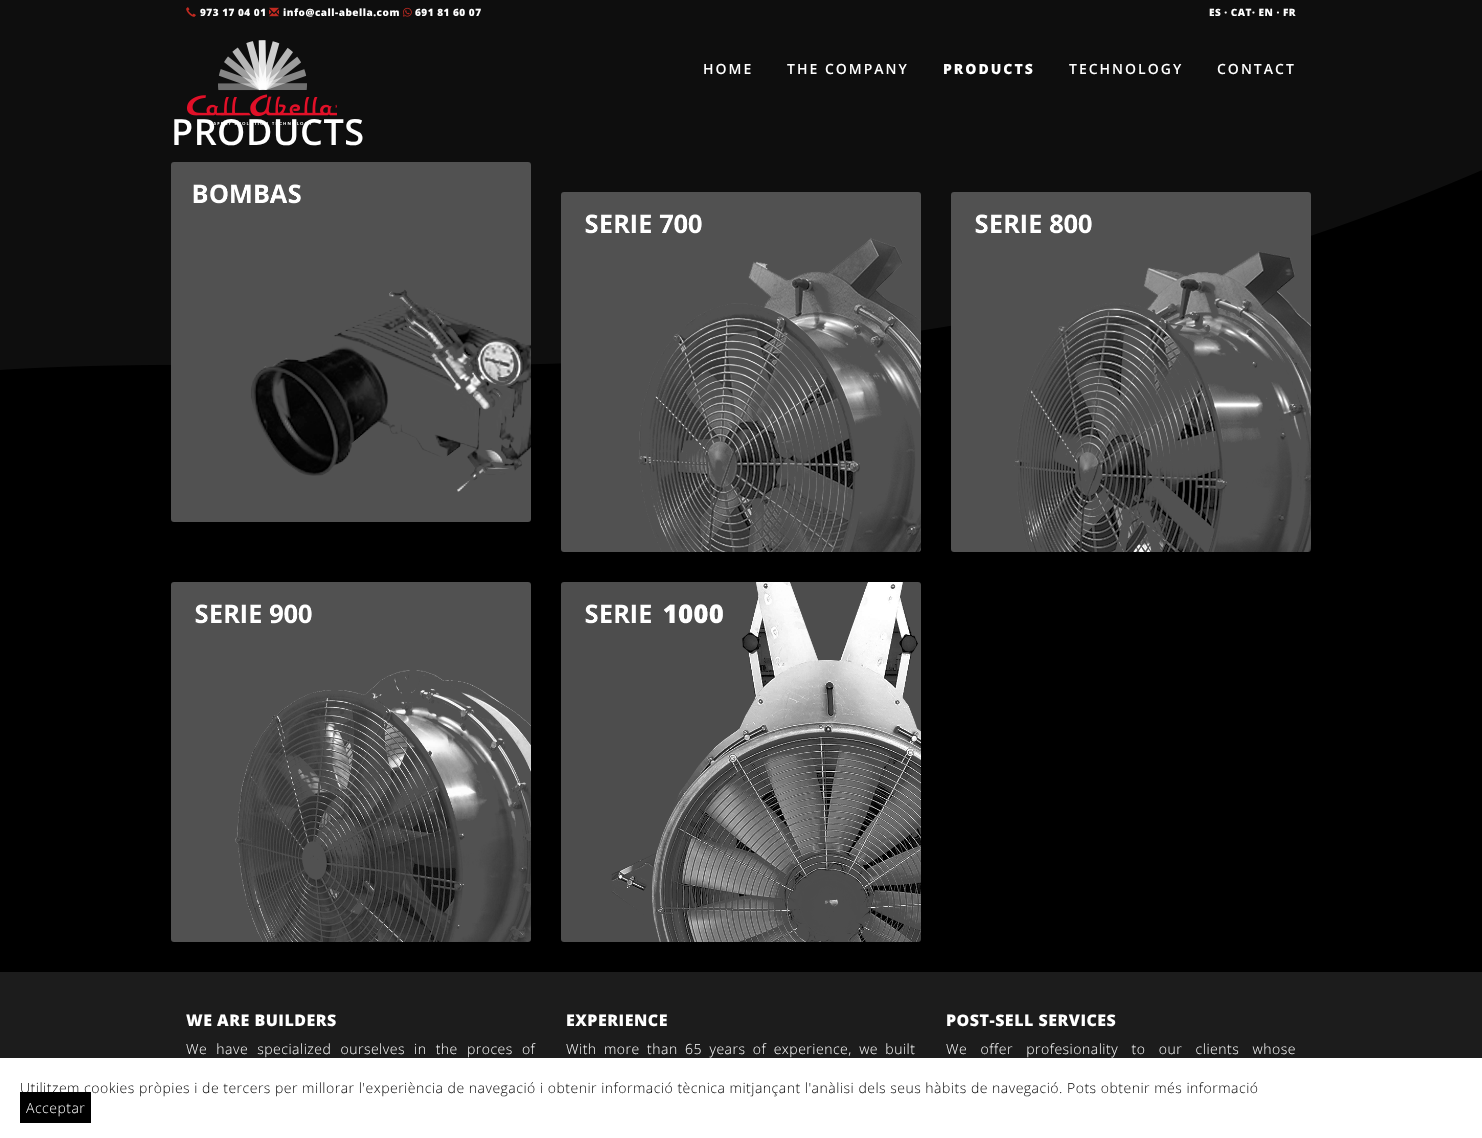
async function draw(canvas) {
  canvas.width = 1482;
  canvas.height = 1138;
  const ctx = canvas.getContext('2d');
  ctx.miterLimit = 4;
  ctx.fontKerning = 'normal';
  function label(s, x, y, font, color) {
    ctx.font = font;
    ctx.fillStyle = color;
    ctx.fillText(s, x, y);
  }
  function rect(x, y, w, h, color) {
    ctx.fillStyle = color;
    ctx.fillRect(x, y, w, h);
  }
  async function image(src, x, y, w, h) {
    const img = new Image();
    img.src = src;
    await img.decode();
    ctx.drawImage(img, x, y, w, h);
  }

  rect(0, 0, 1482, 1138, '#000');
  await image('assets/img1.png', 0, 0, 1482, 370);
  await image('assets/img2.png', 186, 7, 10, 10);
  ctx.letterSpacing = '0.5px';
  label('973 17 04 01', 200, 16, '800 10px Open Sans', '#fff');
  await image('assets/img3.png', 269, 7, 10, 10);
  label('info@call-abella.com', 283, 16, '800 10px Open Sans', '#fff');
  await image('assets/img4.png', 403, 7, 9, 10);
  label('691 81 60 07', 415, 16, '800 10px Open Sans', '#fff');
  label('ES · CAT· EN · FR', 1209, 16, '800 10px Open Sans', '#fff');
  label('PRODUCTS', 171, 145, '600 36px Open Sans', '#fff');
  await image('assets/img5.png', 187, 40, 150, 85);
  ctx.letterSpacing = '2px';
  label('HOME', 703, 74, '600 14px Open Sans', '#fff');
  label('THE COMPANY', 787, 74, '600 14px Open Sans', '#fff');
  label('PRODUCTS', 943, 74, '800 14px Open Sans', '#fff');
  label('TECHNOLOGY', 1069, 74, '600 14px Open Sans', '#fff');
  label('CONTACT', 1217, 74, '600 14px Open Sans', '#fff');
  await image('assets/img6.png', 171, 162, 360, 360);
  await image('assets/img7.png', 561, 192, 360, 360);
  await image('assets/img8.png', 951, 192, 360, 360);
  await image('assets/img9.png', 171, 582, 360, 360);
  await image('assets/img10.png', 561, 582, 360, 360);
  rect(0, 972, 1482, 86, '#1c1c1c');
  ctx.letterSpacing = '0.5px';
  label('WE ARE BUILDERS', 186, 1026, '800 16px Open Sans', '#fff');
  ctx.wordSpacing = '5px';
  label('We have specialized ourselves in the proces of', 186, 1054, '300 14px Open Sans', '#fff');
  ctx.wordSpacing = '0px';
  label('EXPERIENCE', 566, 1026, '800 16px Open Sans', '#fff');
  ctx.wordSpacing = '3.25px';
  label('With more than 65 years of experience, we built', 566, 1054, '300 14px Open Sans', '#fff');
  ctx.wordSpacing = '0px';
  label('POST-SELL SERVICES', 946, 1026, '800 16px Open Sans', '#fff');
  ctx.wordSpacing = '9.25px';
  label('We offer profesionality to our clients whose', 946, 1054, '300 14px Open Sans', '#fff');
  rect(0, 1058, 1482, 80, '#fff');
  ctx.wordSpacing = '0px';
  label('Utilitzem cookies pròpies i de tercers per millorar l\'experiència de navegació i obtenir informació tècnica mitjançant l\'anàlisi dels seus hàbits de navegació. Pots obtenir més informació', 20, 1093, '300 14px Open Sans', '#000');
  rect(20, 1092, 71, 31, '#000');
  label('Acceptar', 26, 1113, '300 14px Open Sans', '#fff');
}

draw(document.querySelector('canvas'));
